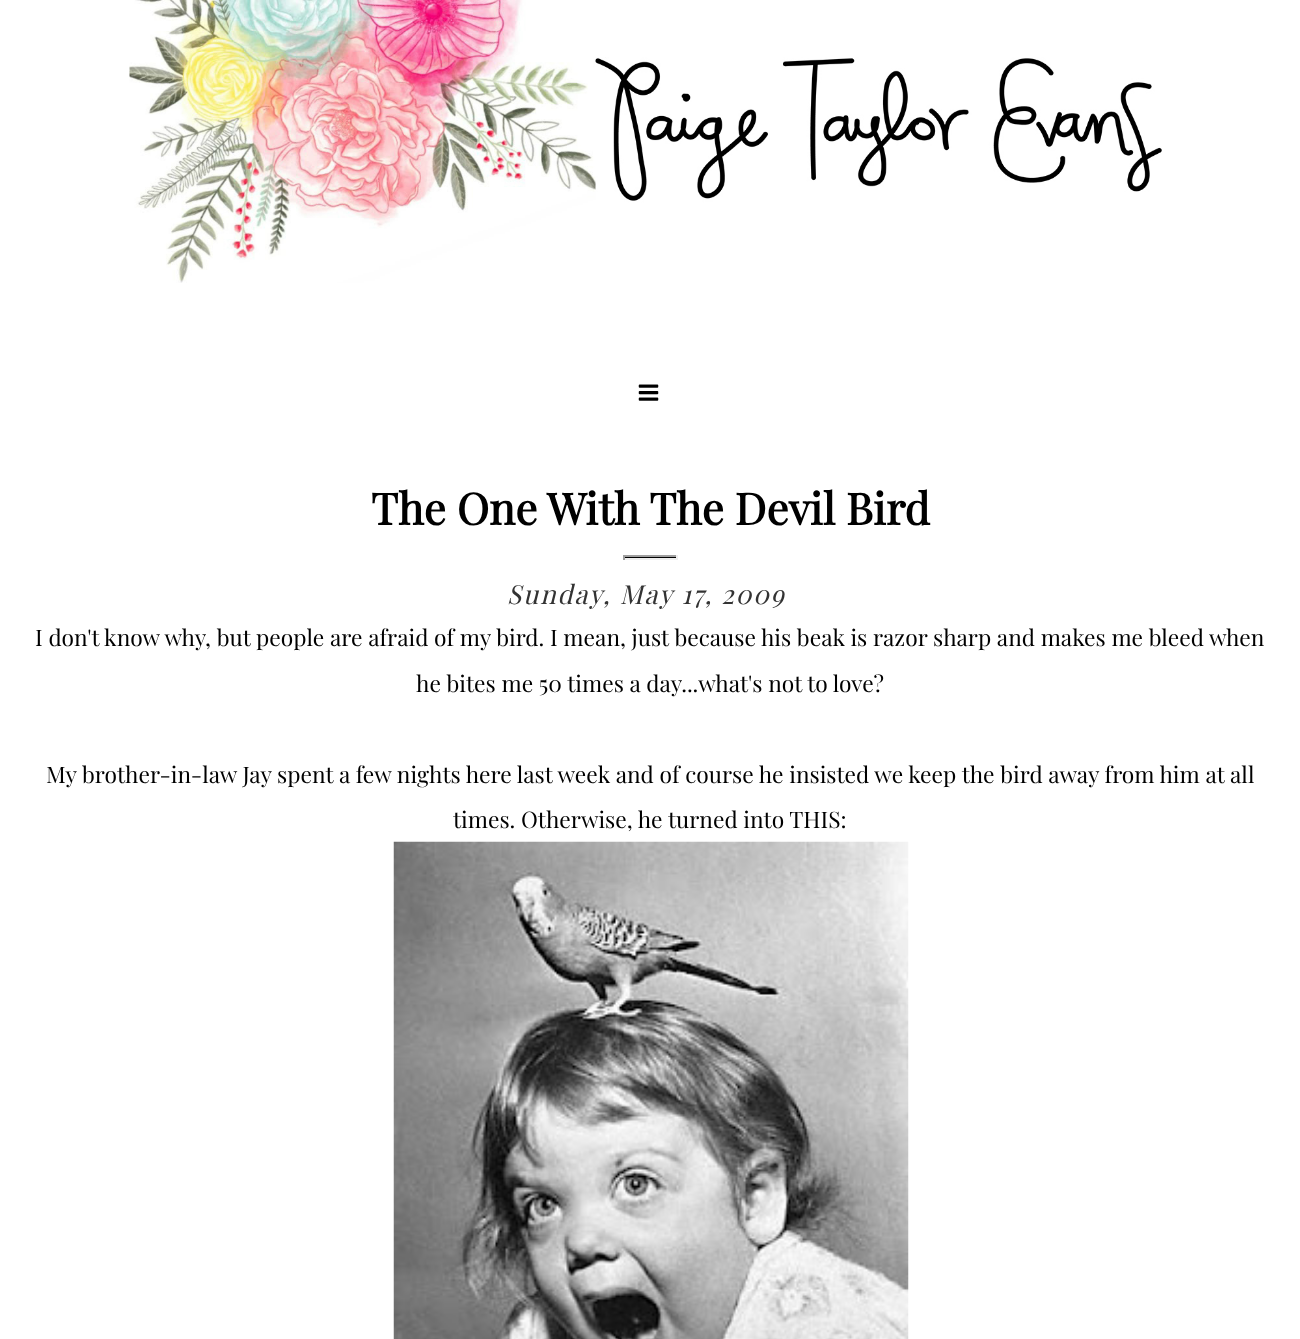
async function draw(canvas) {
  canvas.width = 1300;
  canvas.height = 1339;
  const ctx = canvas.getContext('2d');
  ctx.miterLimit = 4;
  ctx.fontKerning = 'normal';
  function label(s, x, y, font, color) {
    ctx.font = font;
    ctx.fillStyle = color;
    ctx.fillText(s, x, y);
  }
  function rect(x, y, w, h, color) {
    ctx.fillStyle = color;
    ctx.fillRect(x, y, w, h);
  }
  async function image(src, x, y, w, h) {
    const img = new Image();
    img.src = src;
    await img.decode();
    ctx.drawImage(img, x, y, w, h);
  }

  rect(0, 0, 1300, 1339, '#fff');
  await image('assets/img1.png', 129, 0, 1033, 283);
  await image('assets/img2.png', 638, 384, 21, 17);
  label('The One With The Devil Bird', 371, 525, 'bold 43.75px Playfair Display', '#000');
  rect(623, 557, 54, 1, '#000');
  rect(623, 555, 54, 2, '#9f9f9f');
  rect(676, 555, 2, 5, '#eee');
  rect(623, 558, 54, 2, '#eee');
  rect(623, 555, 2, 5, '#9f9f9f');
  ctx.letterSpacing = '1.75px';
  label('Sunday, May 17, 2009', 507, 604, 'italic 26.25px Playfair Display', '#333');
  ctx.letterSpacing = '0px';
  label('I don\'t know why, but people are afraid of my bird. I mean, just because his beak is razor sharp and makes me bleed when', 35, 646, '22.75px Playfair Display', '#000');
  label('he bites me 50 times a day...what\'s not to love?', 416, 692, '22.75px Playfair Display', '#000');
  label('My brother-in-law Jay spent a few nights here last week and of course he insisted we keep the bird away from him at all', 46, 783, '22.75px Playfair Display', '#000');
  label('times. Otherwise, he turned into THIS:', 453, 828, '22.75px Playfair Display', '#000');
  await image('assets/img3.png', 393, 841, 516, 498);
}

draw(document.querySelector('canvas'));
